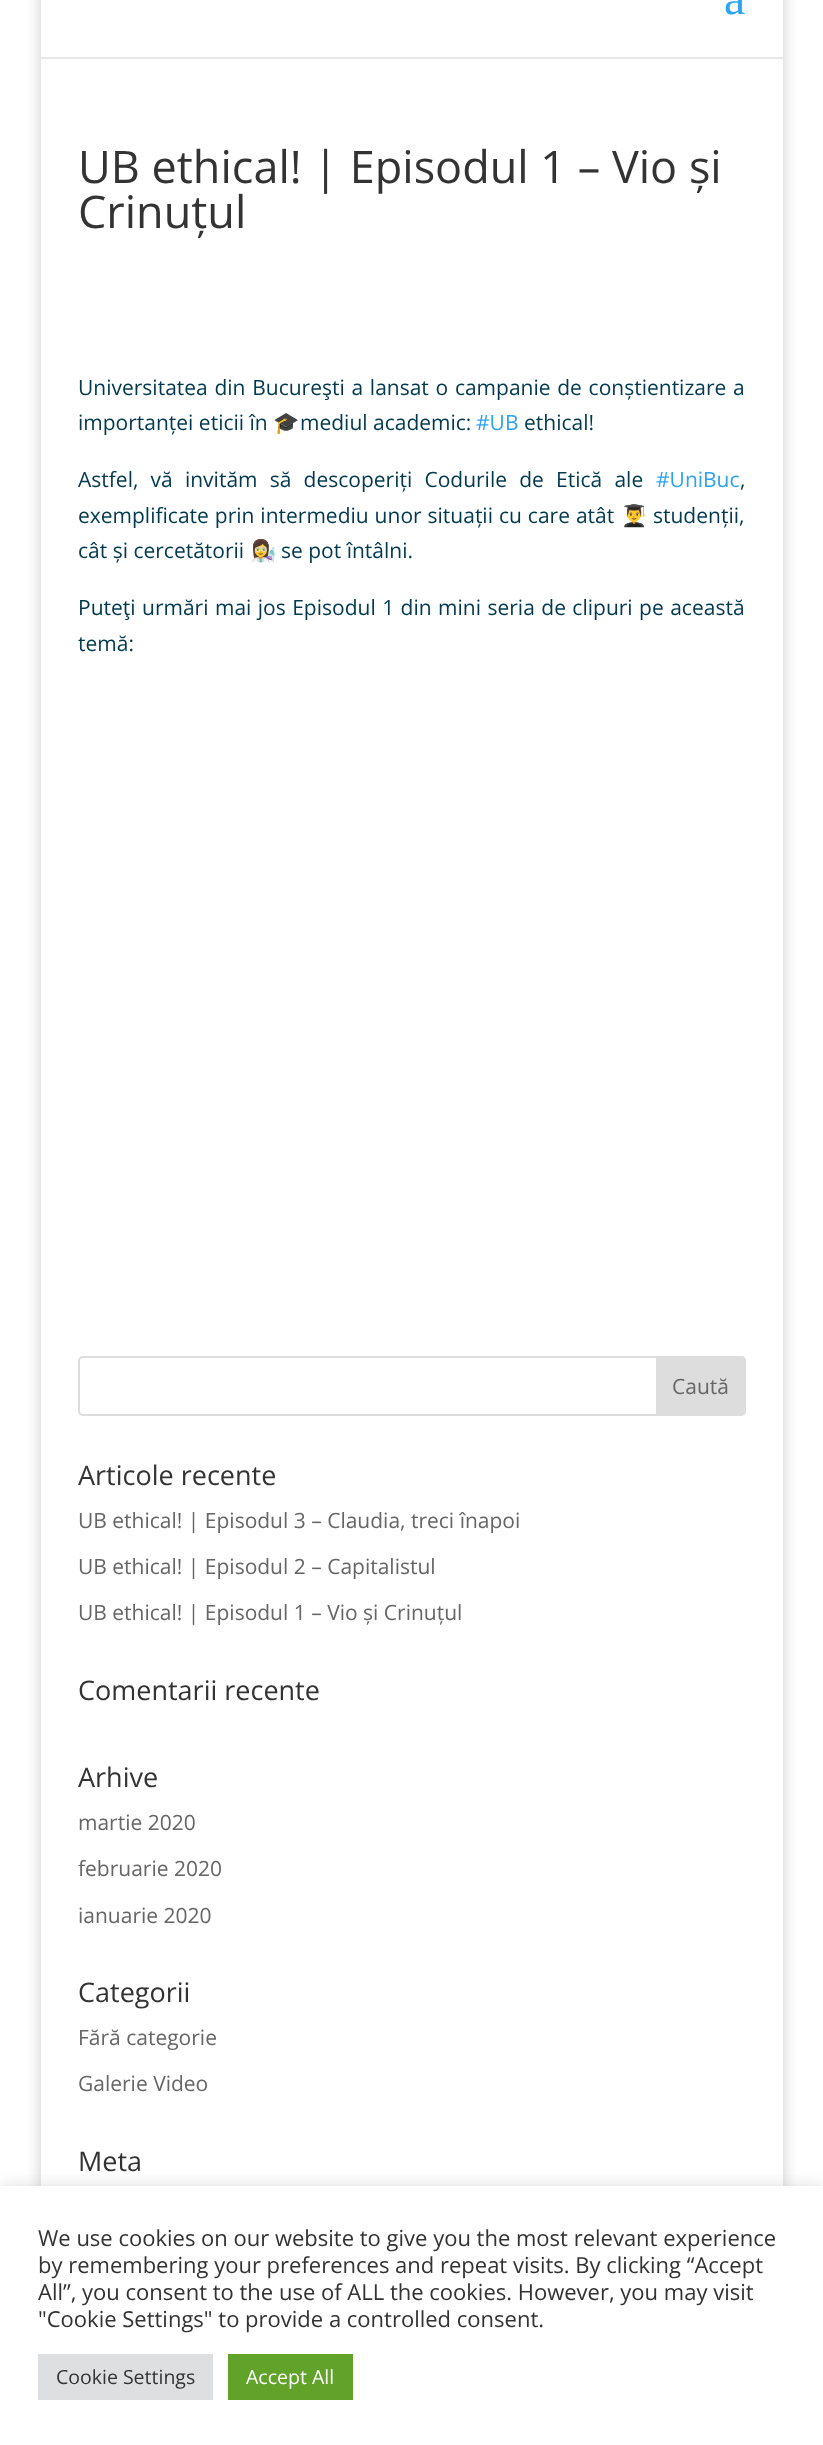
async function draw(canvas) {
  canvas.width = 823;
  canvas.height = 2445;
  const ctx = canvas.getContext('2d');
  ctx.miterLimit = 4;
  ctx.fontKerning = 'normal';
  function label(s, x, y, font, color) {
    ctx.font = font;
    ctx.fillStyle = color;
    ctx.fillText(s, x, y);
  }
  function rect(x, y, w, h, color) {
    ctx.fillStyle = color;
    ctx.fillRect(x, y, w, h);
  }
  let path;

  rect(0, 0, 823, 2445, '#fff');
  ctx.save();
  path = new Path2D('M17 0H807V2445H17ZM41-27H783V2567H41Z');
  ctx.clip(path, 'evenodd');
  ctx.fillStyle = '#00000033';
  ctx.filter = 'blur(7.5px)';
  ctx.beginPath();
  ctx.rect(41, -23, 742, 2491);
  ctx.fill();
  ctx.filter = 'none';
  ctx.restore();
  rect(41, 57, 742, 2, '#e6e6e6');
  label('a', 724, 14, '48px Liberation Serif', '#2ea3f2');
  label('UB ethical! | Episodul 1 – Vio și', 78, 183, '45px Open Sans', '#333');
  label('Crinuțul', 78, 228, '45px Open Sans', '#333');
  ctx.wordSpacing = '1.25px';
  label('Universitatea din Bucureşti a lansat o campanie de conștientizare a', 78, 395, '21px Open Sans', '#013950');
  ctx.wordSpacing = '0px';
  label('importanței eticii în', 78, 430, '21px Open Sans', '#013950');
  label('🎓', 273, 430, '21px Noto Color Emoji', '#013950');
  label('mediul academic:', 300, 430, '21px Open Sans', '#013950');
  label('#UB', 476, 430, '21px Open Sans', '#2ea3f2');
  label('ethical!', 524, 430, '21px Open Sans', '#013950');
  ctx.wordSpacing = '6.75px';
  label('Astfel, vă invităm să descoperiți Codurile de Etică ale', 78, 487, '21px Open Sans', '#013950');
  ctx.wordSpacing = '0px';
  label('#UniBuc', 656, 487, '21px Open Sans', '#2ea3f2');
  label(',', 740, 487, '21px Open Sans', '#013950');
  ctx.wordSpacing = '0.5px';
  label('exemplificate prin intermediu unor situații cu care atât', 78, 523, '21px Open Sans', '#013950');
  ctx.wordSpacing = '0px';
  label('👨‍🎓', 621, 523, '21px Noto Color Emoji', '#013950');
  label('studenții,', 653, 523, '21px Open Sans', '#013950');
  label('cât și cercetătorii', 78, 558, '21px Open Sans', '#013950');
  label('👩‍🔬', 250, 558, '21px Noto Color Emoji', '#013950');
  label('se pot întâlni.', 281, 558, '21px Open Sans', '#013950');
  ctx.wordSpacing = '1px';
  label('Puteţi urmări mai jos Episodul 1 din mini seria de clipuri pe această', 78, 615, '21px Open Sans', '#013950');
  ctx.wordSpacing = '0px';
  label('temă:', 78, 651, '21px Open Sans', '#013950');
  ctx.beginPath();
  ctx.roundRect(79, 1357, 666, 58, 4);
  ctx.strokeStyle = '#ddd';
  ctx.lineWidth = 2;
  ctx.stroke();
  ctx.fillStyle = '#ddd';
  ctx.beginPath();
  ctx.roundRect(657, 1357, 88, 58, [0, 4, 4, 0]);
  ctx.fill();
  ctx.stroke();
  label('Caută', 672, 1394, '21px Open Sans', '#666');
  label('Articole recente', 78, 1485, '27px Open Sans', '#333');
  label('UB ethical! | Episodul 3 – Claudia, treci înapoi', 78, 1528, '21px Open Sans', '#666');
  label('UB ethical! | Episodul 2 – Capitalistul', 78, 1574, '21px Open Sans', '#666');
  label('UB ethical! | Episodul 1 – Vio și Crinuțul', 78, 1620, '21px Open Sans', '#666');
  label('Comentarii recente', 78, 1700, '27px Open Sans', '#333');
  label('Arhive', 78, 1787, '27px Open Sans', '#333');
  label('martie 2020', 78, 1830, '21px Open Sans', '#666');
  label('februarie 2020', 78, 1876, '21px Open Sans', '#666');
  label('ianuarie 2020', 78, 1923, '21px Open Sans', '#666');
  label('Categorii', 78, 2002, '27px Open Sans', '#333');
  label('Fără categorie', 78, 2045, '21px Open Sans', '#666');
  label('Galerie Video', 78, 2091, '21px Open Sans', '#666');
  label('Meta', 78, 2171, '27px Open Sans', '#333');
  ctx.fillStyle = '#acabab4d';
  ctx.filter = 'blur(7.5px)';
  ctx.beginPath();
  ctx.rect(0, 2184, 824, 260);
  ctx.fill();
  ctx.filter = 'none';
  rect(0, 2186, 823, 259, '#fff');
  label('We use cookies on our website to give you the most relevant experience', 38, 2246, '22px Open Sans', '#333');
  label('by remembering your preferences and repeat visits. By clicking “Accept', 38, 2273, '22px Open Sans', '#333');
  label('All”, you consent to the use of ALL the cookies. However, you may visit', 38, 2300, '22px Open Sans', '#333');
  label('"Cookie Settings" to provide a controlled consent.', 38, 2327, '22px Open Sans', '#333');
  rect(38, 2354, 175, 46, '#dedfe0');
  label('Cookie Settings', 56, 2384, '19.5px Open Sans', '#333');
  rect(228, 2354, 125, 46, '#61a229');
  label('Accept All', 246, 2384, '19.5px Open Sans', '#fff');
}

draw(document.querySelector('canvas'));
